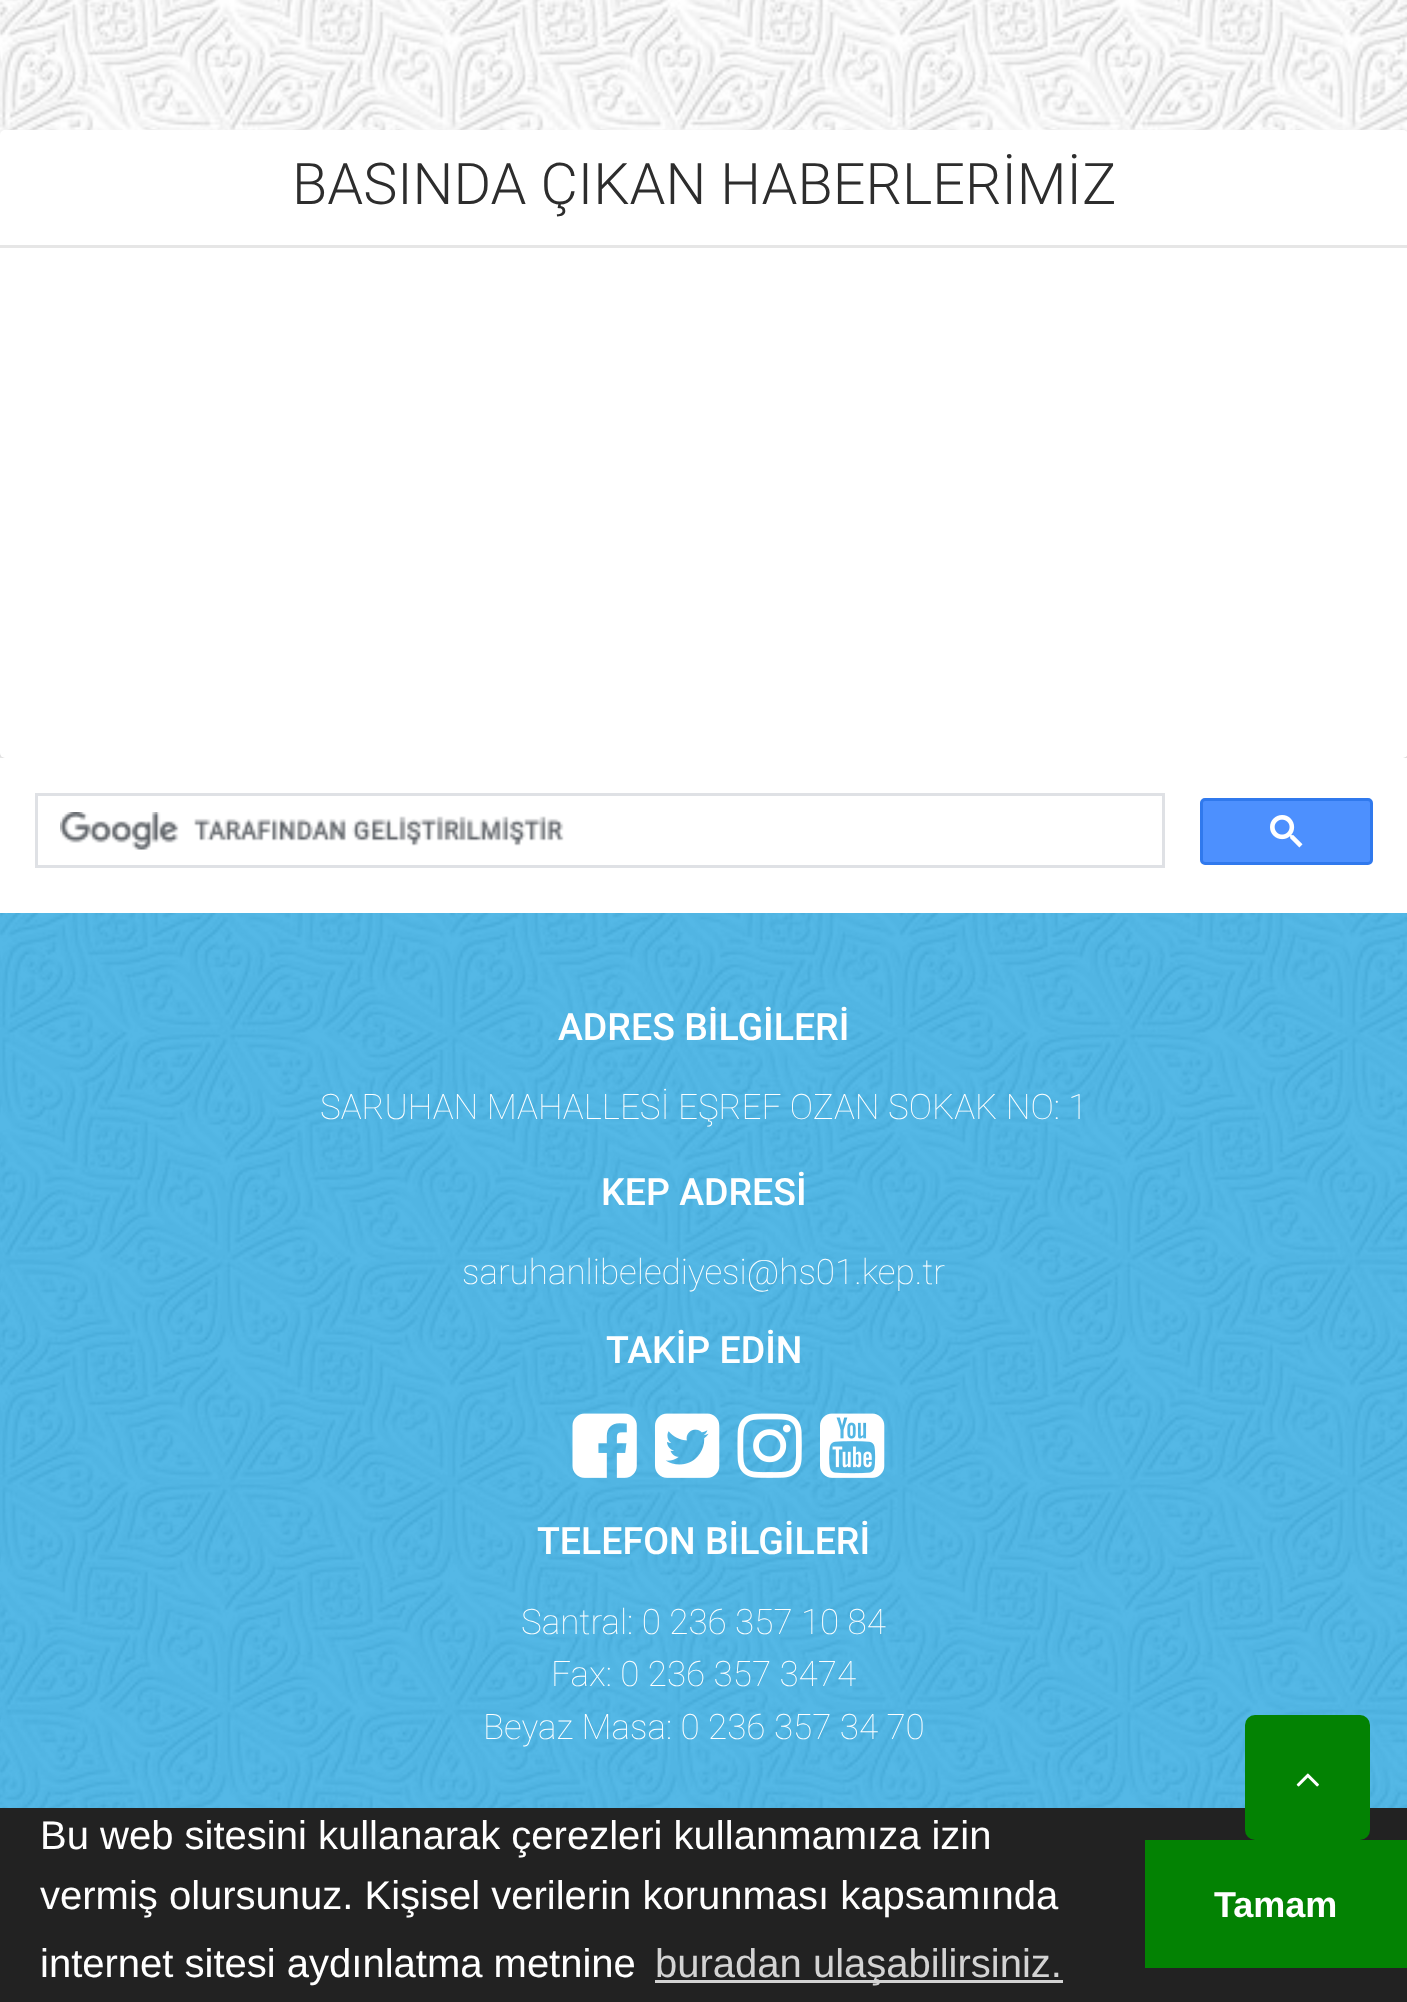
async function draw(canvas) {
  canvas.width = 1407;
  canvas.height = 2002;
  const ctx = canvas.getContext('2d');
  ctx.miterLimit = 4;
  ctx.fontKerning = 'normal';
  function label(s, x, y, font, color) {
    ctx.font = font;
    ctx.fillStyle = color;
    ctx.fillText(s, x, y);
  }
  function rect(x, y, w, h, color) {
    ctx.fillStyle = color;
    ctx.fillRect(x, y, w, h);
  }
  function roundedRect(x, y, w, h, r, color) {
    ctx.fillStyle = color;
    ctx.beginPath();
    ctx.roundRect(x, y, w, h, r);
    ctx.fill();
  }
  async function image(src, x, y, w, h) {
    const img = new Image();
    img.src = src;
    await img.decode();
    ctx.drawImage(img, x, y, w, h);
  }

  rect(0, 0, 1407, 2002, '#fff');
  await image('assets/img1.png', 0, 0, 1407, 1808);
  ctx.fillStyle = '#0000001a';
  ctx.filter = 'blur(1px)';
  ctx.beginPath();
  ctx.roundRect(0, 133, 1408, 627, 5);
  ctx.fill();
  ctx.filter = 'none';
  roundedRect(0, 130, 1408, 628, 5, '#fff');
  rect(0, 245, 1407, 3, '#e6e6e6');
  label('BASINDA ÇIKAN HABERLERİMİZ', 292, 204, '300 57.5px Roboto', '#2d2d2d');
  rect(0, 758, 1407, 155, '#fff');
  ctx.strokeStyle = '#dfe1e5';
  ctx.lineWidth = 3;
  ctx.strokeRect(36.5, 794.5, 1127, 72);
  await image('assets/img2.png', 60, 812, 504, 38);
  ctx.fillStyle = '#4d90fe';
  ctx.beginPath();
  ctx.roundRect(1201.5, 799.5, 170, 64, 3.5);
  ctx.fill();
  ctx.strokeStyle = '#3079ed';
  ctx.stroke();
  await image('assets/img3.png', 1270, 815, 33, 33);
  rect(0, 913, 1407, 895, '#0c9adcb3');
  label('ADRES BİLGİLERİ', 558, 1040, '500 37.5px Roboto', '#fff');
  label('SARUHAN MAHALLESİ EŞREF OZAN SOKAK NO: 1', 320, 1119, '100 35px Roboto', '#fff');
  label('KEP ADRESİ', 601, 1205, '500 37.5px Roboto', '#fff');
  label('saruhanlibelediyesi@hs01.kep.tr', 462, 1284, '100 35px Roboto', '#fff');
  label('TAKİP EDİN', 606, 1363, '500 37.5px Roboto', '#fff');
  await image('assets/img4.png', 572, 1413, 65, 65);
  await image('assets/img5.png', 655, 1413, 65, 65);
  await image('assets/img6.png', 737, 1413, 65, 65);
  await image('assets/img7.png', 820, 1413, 65, 65);
  label('TELEFON BİLGİLERİ', 537, 1554, '500 37.5px Roboto', '#fff');
  label('Santral: 0 236 357 10 84', 521, 1634, '100 35px Roboto', '#fff');
  label('Fax: 0 236 357 3474', 551, 1686, '100 35px Roboto', '#fff');
  label('Beyaz Masa: 0 236 357 34 70', 483, 1739, '100 35px Roboto', '#fff');
  rect(0, 1808, 1407, 194, '#222');
  roundedRect(1245, 1715, 125, 125, 10, '#038203');
  await image('assets/img8.png', 1296, 1773, 23, 14);
  label('Bu web sitesini kullanarak çerezleri kullanmamıza izin', 40, 1849, '40px Liberation Sans', '#fff');
  label('vermiş olursunuz. Kişisel verilerin korunması kapsamında', 40, 1909, '40px Liberation Sans', '#fff');
  label('internet sitesi aydınlatma metnine', 40, 1977, '40px Liberation Sans', '#fff');
  rect(655, 1980, 408, 3, '#d3d3d3');
  label('buradan ulaşabilirsiniz.', 655, 1977, '40px Liberation Sans', '#d3d3d3');
  rect(1145, 1840, 262, 128, '#038203');
  label('Tamam', 1214, 1917, 'bold 36px Liberation Sans', '#fff');
}

draw(document.querySelector('canvas'));
